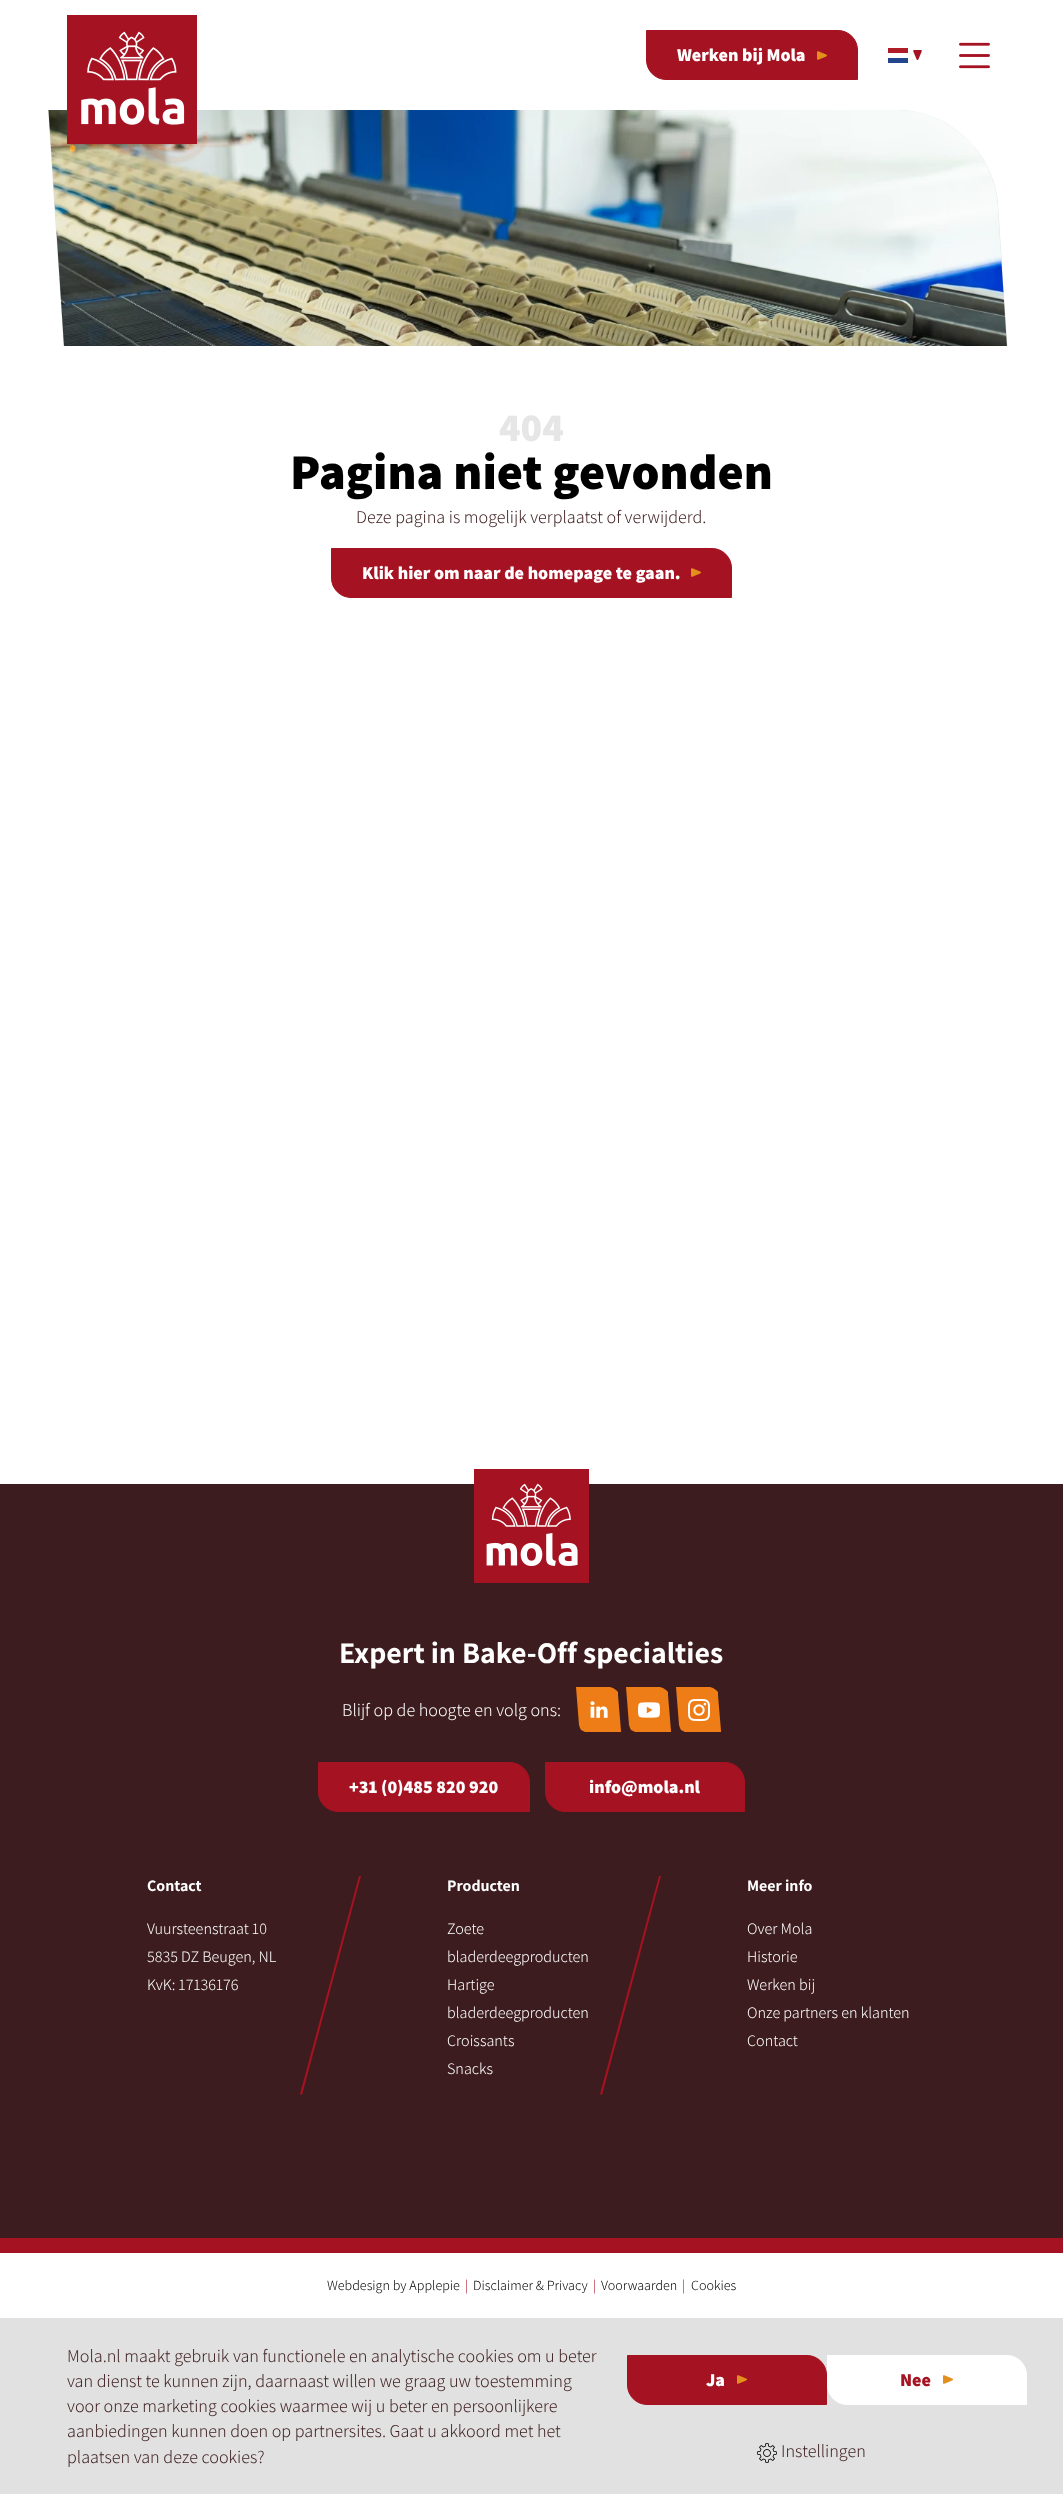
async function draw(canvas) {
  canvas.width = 1063;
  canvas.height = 2519;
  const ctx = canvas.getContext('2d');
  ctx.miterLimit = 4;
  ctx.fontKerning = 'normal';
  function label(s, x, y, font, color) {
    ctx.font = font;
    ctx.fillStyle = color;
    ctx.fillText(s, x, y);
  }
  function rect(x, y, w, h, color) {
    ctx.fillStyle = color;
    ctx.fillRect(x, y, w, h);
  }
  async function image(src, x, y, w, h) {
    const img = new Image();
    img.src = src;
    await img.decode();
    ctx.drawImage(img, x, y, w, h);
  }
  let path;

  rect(0, 0, 1063, 2519, '#fff');
  ctx.save();
  ctx.beginPath();
  ctx.rect(0, 110, 1063, 236);
  ctx.clip();
  ctx.fillStyle = '#e1e1e1';
  path = new Path2D('M48 110H897C949 110 994 152 998 204L1015 461H166C114 461 69 419 65 367Z');
  ctx.fill(path);
  ctx.restore();
  await image('assets/img5.png', 48, 110, 959, 236);
  await image('assets/img1.png', 67, 15, 130, 129);
  ctx.fillStyle = '#a51221';
  ctx.beginPath();
  ctx.roundRect(646.5, 30.5, 211, 49, [0, 19.5, 0, 19.5]);
  ctx.fill();
  ctx.strokeStyle = '#a51221';
  ctx.stroke();
  label('Werken bij Mola', 677, 61, '800 18px Assistant', '#fff');
  await image('assets/img2.png', 817, 51, 10, 9);
  rect(888, 58, 20, 5, '#21468b');
  rect(888, 48, 20, 5, '#ae1c28');
  await image('assets/img3.png', 913, 50, 9, 10);
  await image('assets/img4.png', 959, 42, 31, 27);
  label('404', 499, 441, '800 40px Assistant', '#e6e6e6');
  label('Pagina niet gevonden', 290, 489, '800 50px Assistant', '#000');
  label('Deze pagina is mogelijk verplaatst of verwijderd.', 356, 523, '300 18px Assistant', '#3c1c1e');
  ctx.fillStyle = '#a51221';
  ctx.beginPath();
  ctx.roundRect(331.5, 548.5, 400, 49, [0, 19.5, 0, 19.5]);
  ctx.fill();
  ctx.stroke();
  label('Klik hier om naar de homepage te gaan.', 362, 579, '800 18px Assistant', '#fff');
  await image('assets/img2.png', 691, 568, 10, 9);
  rect(0, 1484, 1063, 754, '#3c1c1e');
  rect(0, 2238, 1063, 15, '#a51221');
  await image('assets/img6.png', 474, 1469, 115, 114);
  label('Expert in Bake-Off specialties', 339, 1663, 'bold 30px Assistant', '#fff');
  label('Blijf op de hoogte en volg ons:', 342, 1716, '300 18px Assistant', '#fff');
  ctx.fillStyle = '#ef7d17';
  path = new Path2D('M621 1731V1732H585L581 1730L580 1728L579 1725L576 1687H610L613 1688L616 1690L618 1692V1695Z');
  ctx.fill(path);
  await image('assets/img7.png', 590, 1701, 18, 17);
  path = new Path2D('M671 1731V1732H635L631 1730L630 1728L629 1725L626 1687H660L663 1688L666 1690L668 1692V1695Z');
  ctx.fill(path);
  await image('assets/img8.png', 638, 1702, 22, 16);
  path = new Path2D('M721 1731V1732H685L681 1730L680 1728L679 1725L676 1687H710L713 1688L716 1690L718 1692V1695Z');
  ctx.fill(path);
  await image('assets/img9.png', 688, 1699, 22, 22);
  ctx.fillStyle = '#a51221';
  ctx.beginPath();
  ctx.roundRect(318.5, 1762.5, 211, 49, [0, 19.5, 0, 19.5]);
  ctx.fill();
  ctx.stroke();
  label('+31 (0)485 820 920', 349, 1793, '800 18px Assistant', '#fff');
  ctx.fillStyle = '#a51221';
  ctx.beginPath();
  ctx.roundRect(545.5, 1762.5, 199, 49, [0, 19.5, 0, 19.5]);
  ctx.fill();
  ctx.stroke();
  label('info@mola.nl', 589, 1793, '800 18px Assistant', '#fff');
  label('Contact', 147, 1891, 'bold 16px Assistant', '#fff');
  label('Vuursteenstraat 10', 147, 1934, '300 16px Assistant', '#fff');
  label('5835 DZ Beugen, NL', 147, 1962, '300 16px Assistant', '#fff');
  label('KvK: 17136176', 147, 1990, '300 16px Assistant', '#fff');
  ctx.fillStyle = '#a51221';
  path = new Path2D('M359 1876H361L302 2095L300 2094Z');
  ctx.fill(path);
  label('Producten', 447, 1891, 'bold 16px Assistant', '#fff');
  label('Zoete', 447, 1934, '300 16px Assistant', '#fff');
  label('bladerdeegproducten', 447, 1962, '300 16px Assistant', '#fff');
  label('Hartige', 447, 1990, '300 16px Assistant', '#fff');
  label('bladerdeegproducten', 447, 2018, '300 16px Assistant', '#fff');
  label('Croissants', 447, 2046, '300 16px Assistant', '#fff');
  label('Snacks', 447, 2074, '300 16px Assistant', '#fff');
  ctx.fillStyle = '#a51221';
  path = new Path2D('M659 1876H661L602 2095L600 2094Z');
  ctx.fill(path);
  label('Meer info', 747, 1891, 'bold 16px Assistant', '#fff');
  label('Over Mola', 747, 1934, '300 16px Assistant', '#fff');
  label('Historie', 747, 1962, '300 16px Assistant', '#fff');
  label('Werken bij', 747, 1990, '300 16px Assistant', '#fff');
  label('Onze partners en klanten', 747, 2018, '300 16px Assistant', '#fff');
  label('Contact', 747, 2046, '300 16px Assistant', '#fff');
  label('Webdesign by Applepie', 327, 2290, '300 14px Assistant', '#000');
  label('|', 465, 2290, '300 14px Assistant', '#a51221');
  label('Disclaimer & Privacy', 473, 2290, '300 14px Assistant', '#000');
  label('|', 593, 2290, '300 14px Assistant', '#a51221');
  label('Voorwaarden', 601, 2290, '300 14px Assistant', '#000');
  label('|', 682, 2290, '300 14px Assistant', '#a51221');
  label('Cookies', 691, 2290, '300 14px Assistant', '#000');
  rect(0, 2318, 1063, 176, '#e1e1e1');
  label('Mola.nl maakt gebruik van functionele en analytische cookies om u beter', 67, 2362, '300 18px Assistant', '#3c1c1e');
  label('van dienst te kunnen zijn, daarnaast willen we graag uw toestemming', 67, 2387, '300 18px Assistant', '#3c1c1e');
  label('voor onze marketing cookies waarmee wij u beter en persoonlijkere', 67, 2412, '300 18px Assistant', '#3c1c1e');
  label('aanbiedingen kunnen doen op partnersites. Gaat u akkoord met het', 67, 2437, '300 18px Assistant', '#3c1c1e');
  label('plaatsen van deze cookies?', 67, 2463, '300 18px Assistant', '#3c1c1e');
  ctx.fillStyle = '#a51221';
  ctx.beginPath();
  ctx.roundRect(627.5, 2355.5, 199, 49, [0, 19.5, 0, 19.5]);
  ctx.fill();
  ctx.stroke();
  label('Ja', 706, 2386, '800 18px Assistant', '#fff');
  await image('assets/img2.png', 737, 2375, 10, 9);
  ctx.beginPath();
  ctx.roundRect(827.5, 2355.5, 199, 49, [0, 19.5, 0, 19.5]);
  ctx.fill();
  ctx.strokeStyle = '#fff';
  ctx.stroke();
  label('Nee', 900, 2386, '800 18px Assistant', '#a51221');
  await image('assets/img10.png', 943, 2375, 10, 9);
  await image('assets/img11.png', 757, 2443, 20, 20);
  label('Instellingen', 781, 2457, '300 18px Assistant', '#3c1c1e');
}

draw(document.querySelector('canvas'));
